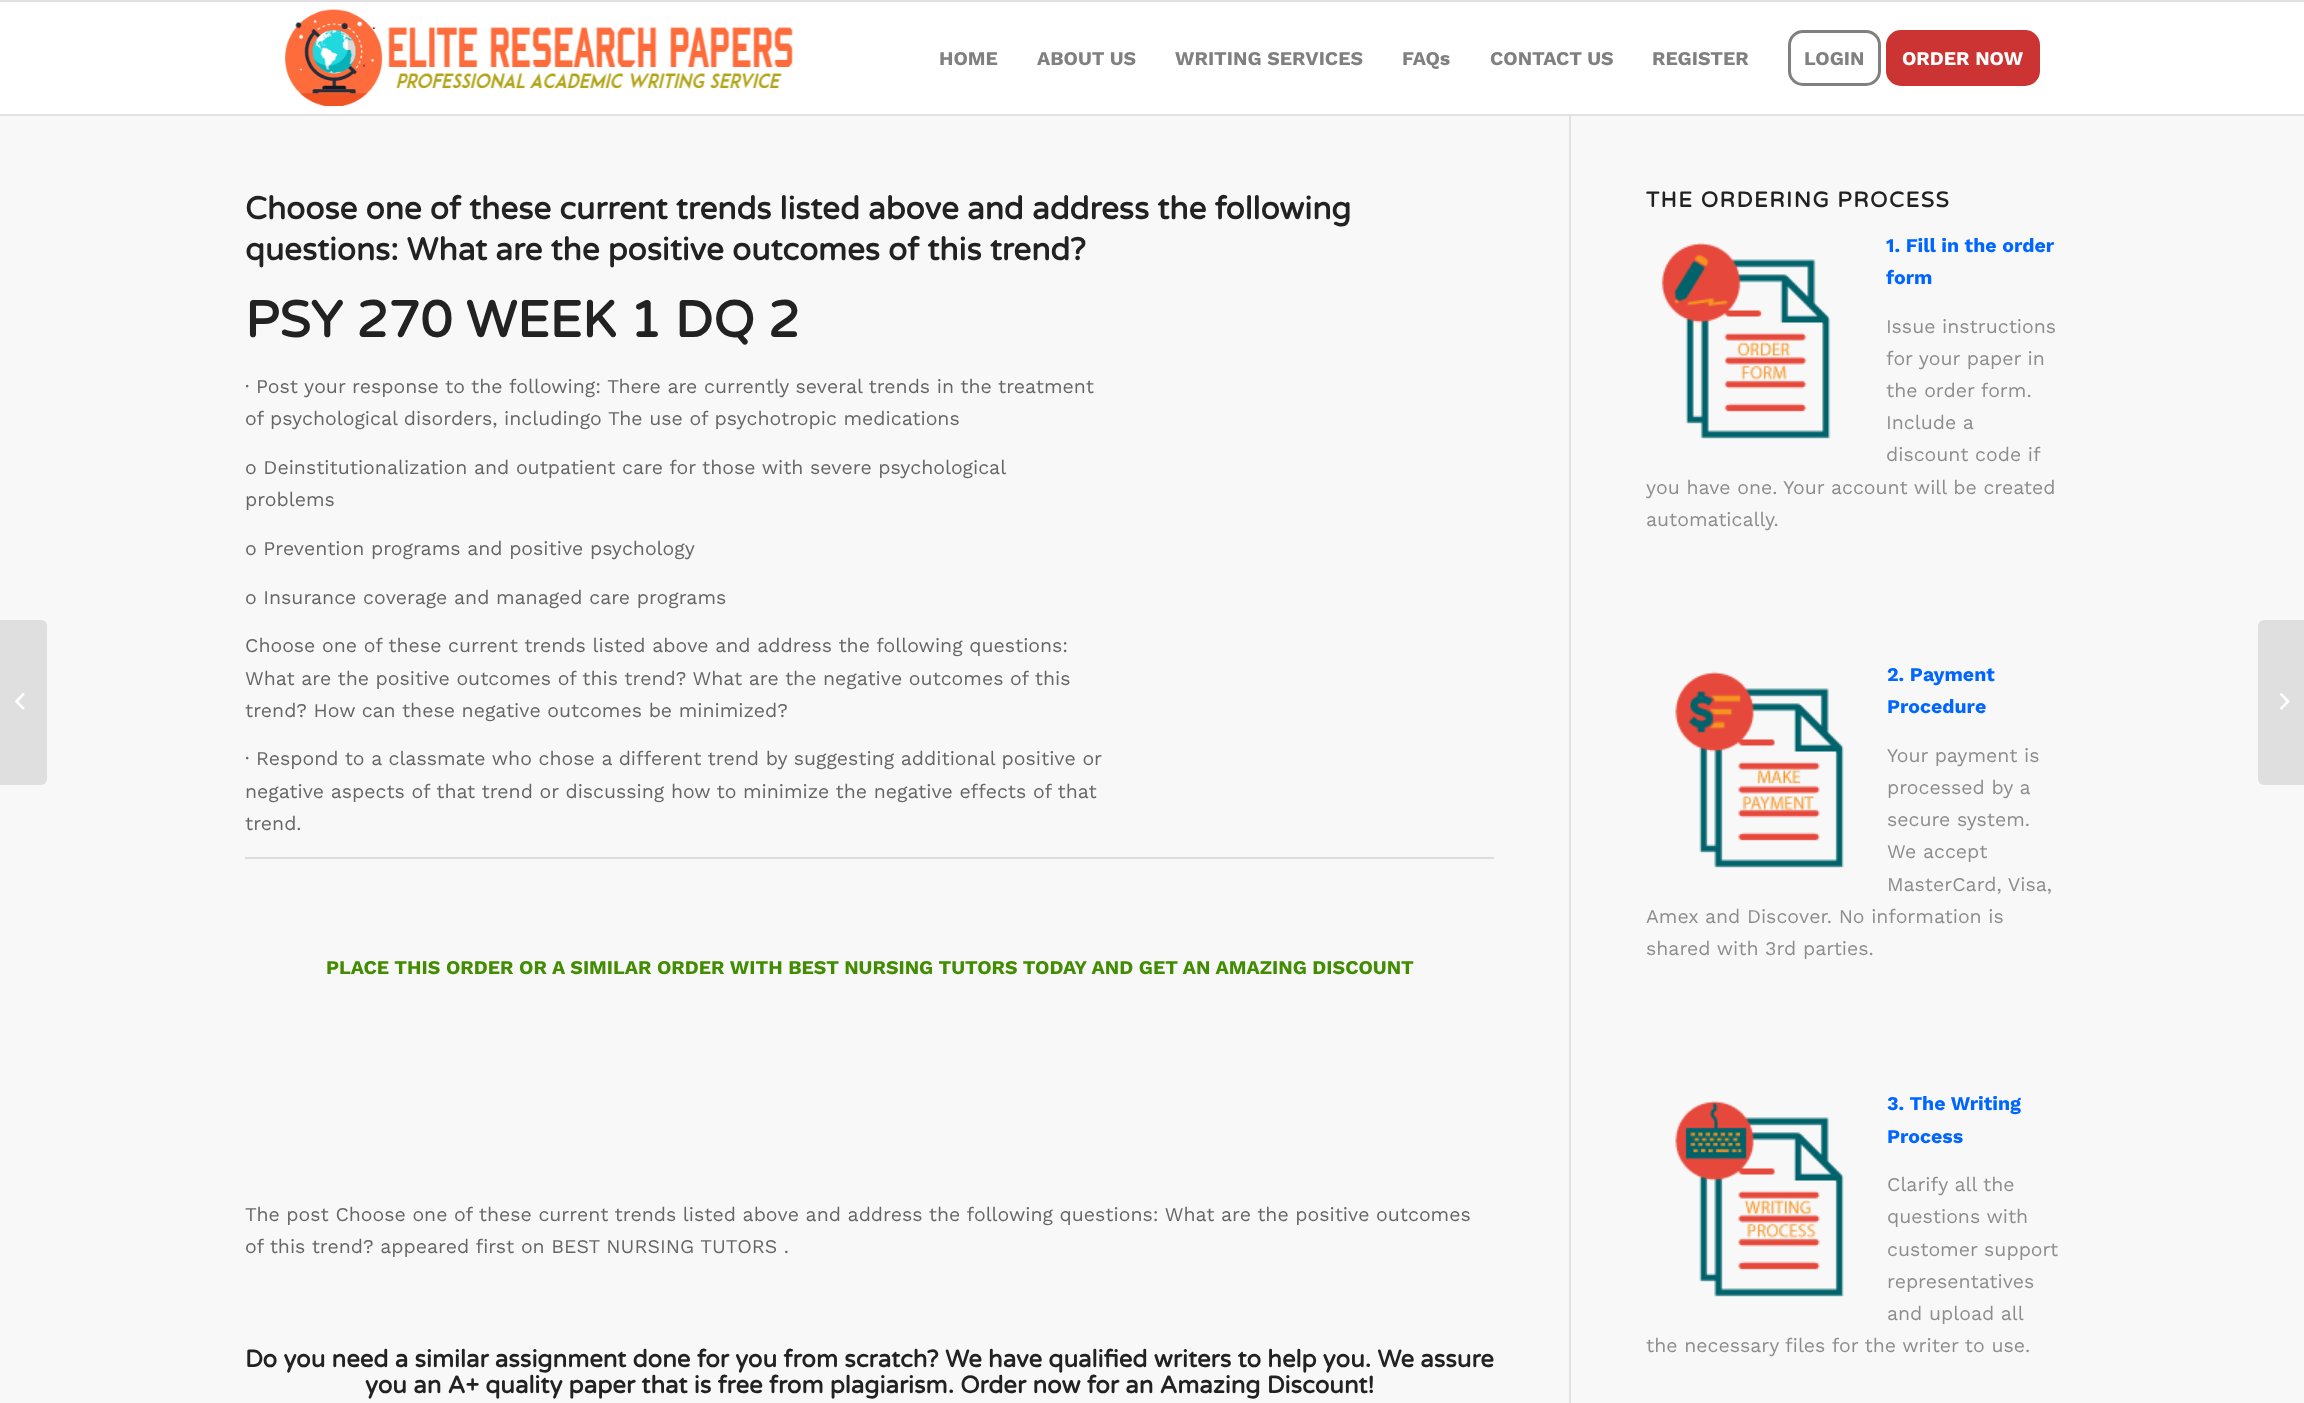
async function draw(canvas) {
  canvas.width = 2304;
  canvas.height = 1403;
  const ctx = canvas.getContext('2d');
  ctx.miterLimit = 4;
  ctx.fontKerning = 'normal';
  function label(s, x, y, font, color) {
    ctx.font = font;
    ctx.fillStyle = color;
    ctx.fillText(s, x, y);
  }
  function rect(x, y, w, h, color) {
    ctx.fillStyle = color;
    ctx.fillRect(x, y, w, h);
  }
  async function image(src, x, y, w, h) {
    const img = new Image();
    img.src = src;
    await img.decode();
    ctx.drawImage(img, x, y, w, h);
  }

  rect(0, 0, 2304, 1403, '#fff');
  rect(0, 0, 2304, 2, '#e1e1e1');
  rect(0, 116, 2304, 1287, '#f8f8f8');
  rect(1569, 114, 2, 1289, '#e1e1e1');
  rect(0, 114, 2304, 2, '#e1e1e1');
  await image('assets/img1.png', 285, 9, 508, 97);
  label('HOME', 939, 65, 'bold 19.5px Work Sans', '#808080');
  label('ABOUT US', 1037, 65, 'bold 19.5px Work Sans', '#808080');
  label('WRITING SERVICES', 1175, 65, 'bold 19.5px Work Sans', '#808080');
  label('FAQs', 1402, 65, 'bold 19.5px Work Sans', '#808080');
  label('CONTACT US', 1490, 65, 'bold 19.5px Work Sans', '#808080');
  label('REGISTER', 1652, 65, 'bold 19.5px Work Sans', '#808080');
  ctx.beginPath();
  ctx.roundRect(1789.5, 31.5, 90, 53, 13.5);
  ctx.strokeStyle = '#808080';
  ctx.lineWidth = 3;
  ctx.stroke();
  label('LOGIN', 1804, 65, 'bold 19.5px Work Sans', '#808080');
  ctx.fillStyle = '#c33';
  ctx.beginPath();
  ctx.roundRect(1887.5, 31.5, 151, 53, 13.5);
  ctx.fill();
  ctx.strokeStyle = '#c33';
  ctx.stroke();
  label('ORDER NOW', 1902, 65, 'bold 19.5px Work Sans', '#fff');
  ctx.fillStyle = '#dfdfdf';
  ctx.beginPath();
  ctx.roundRect(0, 620, 47, 165, [0, 6, 6, 0]);
  ctx.fill();
  await image('assets/img2.png', 15, 693, 10, 17);
  label('Choose one of these current trends listed above and address the following', 245, 219, 'bold 31.5px Varela Round', '#222');
  label('questions: What are the positive outcomes of this trend?', 245, 260, 'bold 31.5px Varela Round', '#222');
  label('PSY 270 WEEK 1 DQ 2', 245, 337, 'bold 51px Varela Round', '#222');
  label('· Post your response to the following: There are currently several trends in the treatment', 245, 393, '19.5px Work Sans', '#666');
  label('of psychological disorders, includingo The use of psychotropic medications', 245, 425, '19.5px Work Sans', '#666');
  label('o Deinstitutionalization and outpatient care for those with severe psychological', 245, 474, '19.5px Work Sans', '#666');
  label('problems', 245, 506, '19.5px Work Sans', '#666');
  label('o Prevention programs and positive psychology', 245, 555, '19.5px Work Sans', '#666');
  label('o Insurance coverage and managed care programs', 245, 604, '19.5px Work Sans', '#666');
  label('Choose one of these current trends listed above and address the following questions:', 245, 652, '19.5px Work Sans', '#666');
  label('What are the positive outcomes of this trend? What are the negative outcomes of this', 245, 685, '19.5px Work Sans', '#666');
  label('trend? How can these negative outcomes be minimized?', 245, 717, '19.5px Work Sans', '#666');
  label('· Respond to a classmate who chose a different trend by suggesting additional positive or', 245, 765, '19.5px Work Sans', '#666');
  label('negative aspects of that trend or discussing how to minimize the negative effects of that', 245, 798, '19.5px Work Sans', '#666');
  label('trend.', 245, 830, '19.5px Work Sans', '#666');
  rect(245, 857, 1249, 2, '#ddd');
  label('PLACE THIS ORDER OR A SIMILAR ORDER WITH BEST NURSING TUTORS TODAY AND GET AN AMAZING DISCOUNT', 326, 974, 'bold 19.5px Work Sans', '#418c00');
  label('The post Choose one of these current trends listed above and address the following questions: What are the positive outcomes', 245, 1221, '19.5px Work Sans', '#666');
  label('of this trend? appeared first on BEST NURSING TUTORS .', 245, 1253, '19.5px Work Sans', '#666');
  label('Do you need a similar assignment done for you from scratch? We have qualified writers to help you. We assure', 245, 1367, 'bold 24px Varela Round', '#222');
  label('you an A+ quality paper that is free from plagiarism. Order now for an Amazing Discount!', 365, 1393, 'bold 24px Varela Round', '#222');
  ctx.letterSpacing = '1.5px';
  label('THE ORDERING PROCESS', 1646, 207, 'bold 21.5px Varela Round', '#222');
  await image('assets/img3.png', 1661, 242, 170, 197);
  ctx.letterSpacing = '0px';
  label('1. Fill in the order', 1886, 252, 'bold 19.5px Work Sans', '#06f');
  label('form', 1886, 284, 'bold 19.5px Work Sans', '#06f');
  label('Issue instructions', 1886, 333, '19.5px Work Sans', '#8d8d8d');
  label('for your paper in', 1886, 365, '19.5px Work Sans', '#8d8d8d');
  label('the order form.', 1886, 397, '19.5px Work Sans', '#8d8d8d');
  label('Include a', 1886, 429, '19.5px Work Sans', '#8d8d8d');
  label('discount code if', 1886, 461, '19.5px Work Sans', '#8d8d8d');
  label('you have one. Your account will be created', 1646, 494, '19.5px Work Sans', '#8d8d8d');
  label('automatically.', 1646, 526, '19.5px Work Sans', '#8d8d8d');
  await image('assets/img4.png', 1675, 671, 169, 197);
  label('2. Payment', 1887, 681, 'bold 19.5px Work Sans', '#06f');
  label('Procedure', 1887, 713, 'bold 19.5px Work Sans', '#06f');
  label('Your payment is', 1887, 762, '19.5px Work Sans', '#8d8d8d');
  label('processed by a', 1887, 794, '19.5px Work Sans', '#8d8d8d');
  label('secure system.', 1887, 826, '19.5px Work Sans', '#8d8d8d');
  label('We accept', 1887, 858, '19.5px Work Sans', '#8d8d8d');
  label('MasterCard, Visa,', 1887, 891, '19.5px Work Sans', '#8d8d8d');
  label('Amex and Discover. No information is', 1646, 923, '19.5px Work Sans', '#8d8d8d');
  label('shared with 3rd parties.', 1646, 955, '19.5px Work Sans', '#8d8d8d');
  await image('assets/img5.png', 1675, 1100, 169, 197);
  label('3. The Writing', 1887, 1110, 'bold 19.5px Work Sans', '#06f');
  label('Process', 1887, 1143, 'bold 19.5px Work Sans', '#06f');
  label('Clarify all the', 1887, 1191, '19.5px Work Sans', '#8d8d8d');
  label('questions with', 1887, 1223, '19.5px Work Sans', '#8d8d8d');
  label('customer support', 1887, 1256, '19.5px Work Sans', '#8d8d8d');
  label('representatives', 1887, 1288, '19.5px Work Sans', '#8d8d8d');
  label('and upload all', 1887, 1320, '19.5px Work Sans', '#8d8d8d');
  label('the necessary files for the writer to use.', 1646, 1352, '19.5px Work Sans', '#8d8d8d');
  ctx.fillStyle = '#dfdfdf';
  ctx.beginPath();
  ctx.roundRect(2258, 620, 46, 165, [6, 0, 0, 6]);
  ctx.fill();
  await image('assets/img6.png', 2280, 693, 10, 17);
}

draw(document.querySelector('canvas'));
